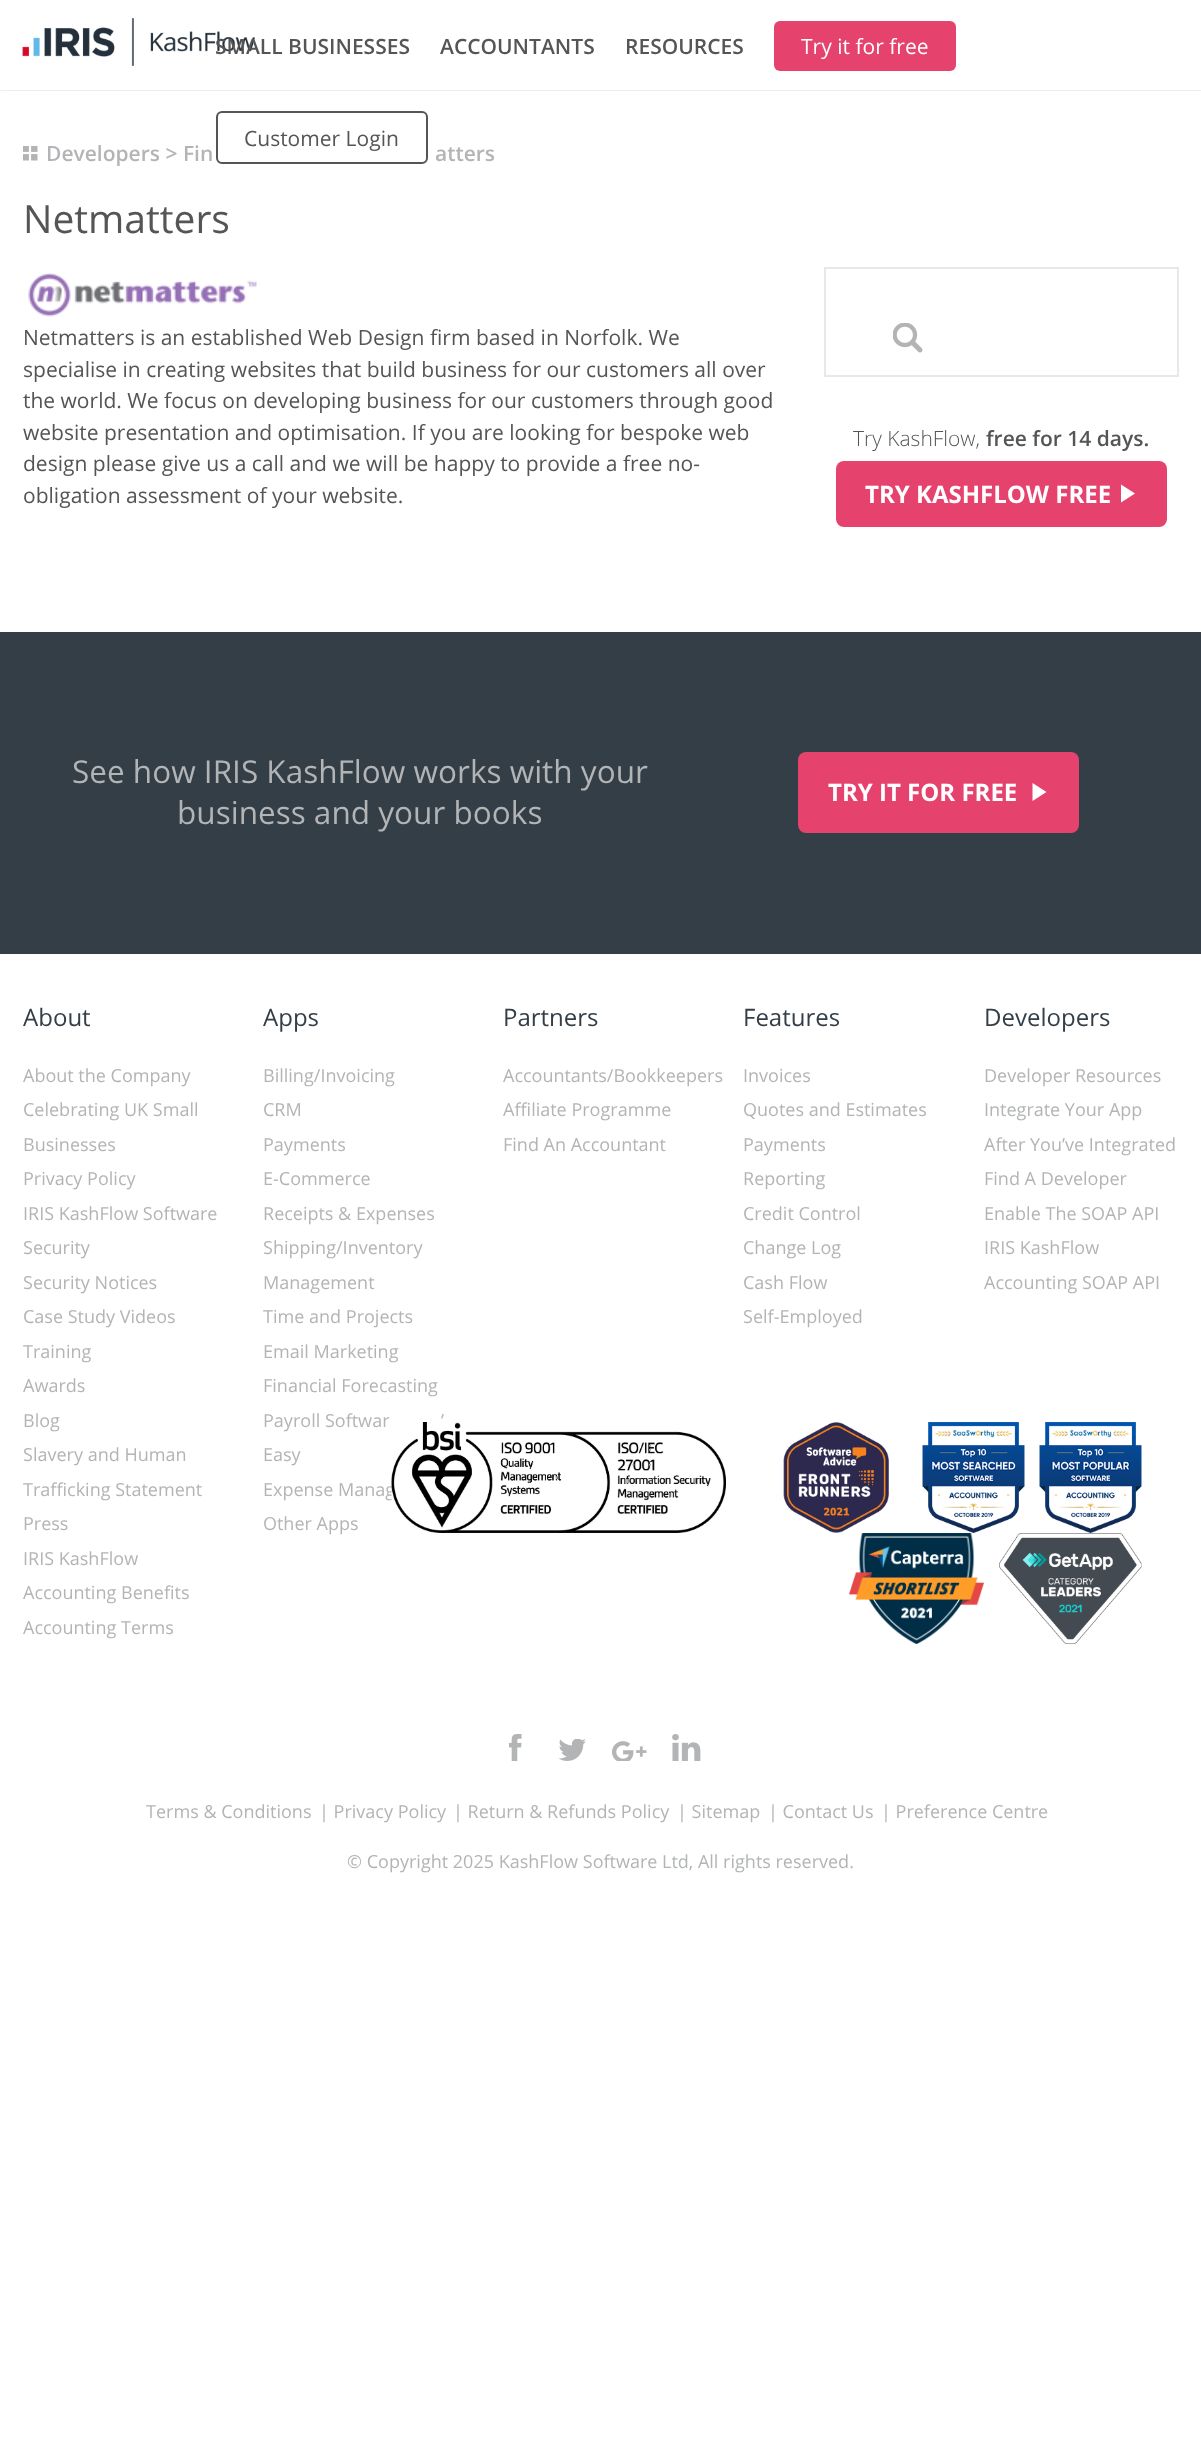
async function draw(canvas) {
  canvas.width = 1201;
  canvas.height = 2462;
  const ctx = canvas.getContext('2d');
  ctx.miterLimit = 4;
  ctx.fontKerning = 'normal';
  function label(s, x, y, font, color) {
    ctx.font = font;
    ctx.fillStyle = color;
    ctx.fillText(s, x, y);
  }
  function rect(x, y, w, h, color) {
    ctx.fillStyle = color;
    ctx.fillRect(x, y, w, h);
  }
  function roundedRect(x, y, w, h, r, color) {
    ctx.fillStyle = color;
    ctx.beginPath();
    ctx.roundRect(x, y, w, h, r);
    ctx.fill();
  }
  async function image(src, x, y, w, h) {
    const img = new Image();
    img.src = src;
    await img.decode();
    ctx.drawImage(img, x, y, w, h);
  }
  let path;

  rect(0, 0, 1201, 2462, '#fff');
  ctx.save();
  ctx.beginPath();
  ctx.rect(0, 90, 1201, 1);
  ctx.clip();
  ctx.fillStyle = '#00000036';
  ctx.filter = 'blur(1px)';
  ctx.beginPath();
  ctx.rect(0, 0, 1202, 90);
  ctx.fill();
  ctx.filter = 'none';
  ctx.restore();
  await image('assets/img1.png', 22, 18, 233, 48);
  label('SMALL BUSINESSES', 215, 54, '600 21px Open Sans', '#555');
  label('ACCOUNTANTS', 440, 54, '600 21px Open Sans', '#555');
  label('RESOURCES', 625, 54, '600 21px Open Sans', '#555');
  roundedRect(774, 21, 182, 50, 6, '#e5426e');
  label('Try it for free', 801, 54, '21px Open Sans', '#fff');
  ctx.beginPath();
  ctx.roundRect(217, 112, 210, 51, 5);
  ctx.strokeStyle = '#555';
  ctx.lineWidth = 2;
  ctx.stroke();
  label('Customer Login', 244, 146, '21px Open Sans', '#555');
  await image('assets/img2.png', 23, 146, 15, 15);
  label('Developers > Fin', 46, 161, '600 21px Open Sans', '#b2b4b6');
  label('atters', 435, 161, '600 21px Open Sans', '#b2b4b6');
  label('Netmatters', 23, 233, '39px Open Sans', '#555');
  await image('assets/img3.png', 28, 273, 229, 44);
  label('Netmatters is an established Web Design firm based in Norfolk. We', 23, 345, '21px Open Sans', '#555');
  label('specialise in creating websites that build business for our customers all over', 23, 377, '21px Open Sans', '#555');
  label('the world. We focus on developing business for our customers through good', 23, 408, '21px Open Sans', '#555');
  label('website presentation and optimisation. If you are looking for bespoke web', 23, 440, '21px Open Sans', '#555');
  label('design please give us a call and we will be happy to provide a free no-', 23, 471, '21px Open Sans', '#555');
  label('obligation assessment of your website.', 23, 503, '21px Open Sans', '#555');
  ctx.strokeStyle = '#e5e9ea';
  ctx.strokeRect(825, 268, 353, 108);
  await image('assets/img4.png', 893, 323, 30, 30);
  label('Try KashFlow,', 853, 446, '300 21px Open Sans', '#555');
  label('free for 14 days.', 986, 446, '600 21px Open Sans', '#555');
  roundedRect(836, 461, 331, 66, 8, '#e5426e');
  label('TRY KASHFLOW FREE', 865, 503, 'bold 24px Open Sans', '#fff');
  path = new Path2D('M1121 484.5V502.5L1135 493.5Z');
  ctx.fill(path);
  rect(0, 632, 1201, 322, '#333e47');
  label('See how IRIS KashFlow works with your', 72, 783, '31.5px Open Sans', '#b2b4b6');
  label('business and your books', 177, 824, '31.5px Open Sans', '#b2b4b6');
  roundedRect(798, 752, 281, 81, 8, '#e5426e');
  label('TRY IT FOR FREE', 828, 801, 'bold 24px Open Sans', '#fff');
  path = new Path2D('M1032.5 783V801L1046.5 792Z');
  ctx.fill(path);
  label('About', 23, 1026, '24px Open Sans', '#333e47');
  label('About the Company', 23, 1082, '18px Open Sans', '#b2b4b6');
  label('Celebrating UK Small', 23, 1116, '18px Open Sans', '#b2b4b6');
  label('Businesses', 23, 1151, '18px Open Sans', '#b2b4b6');
  label('Privacy Policy', 23, 1185, '18px Open Sans', '#b2b4b6');
  label('IRIS KashFlow Software', 23, 1220, '18px Open Sans', '#b2b4b6');
  label('Security', 23, 1254, '18px Open Sans', '#b2b4b6');
  label('Security Notices', 23, 1289, '18px Open Sans', '#b2b4b6');
  label('Case Study Videos', 23, 1323, '18px Open Sans', '#b2b4b6');
  label('Training', 23, 1358, '18px Open Sans', '#b2b4b6');
  label('Awards', 23, 1392, '18px Open Sans', '#b2b4b6');
  label('Blog', 23, 1427, '18px Open Sans', '#b2b4b6');
  label('Slavery and Human', 23, 1461, '18px Open Sans', '#b2b4b6');
  label('Trafficking Statement', 23, 1496, '18px Open Sans', '#b2b4b6');
  label('Press', 23, 1530, '18px Open Sans', '#b2b4b6');
  label('IRIS KashFlow', 23, 1565, '18px Open Sans', '#b2b4b6');
  label('Accounting Benefits', 23, 1599, '18px Open Sans', '#b2b4b6');
  label('Accounting Terms', 23, 1634, '18px Open Sans', '#b2b4b6');
  label('Apps', 263, 1026, '24px Open Sans', '#333e47');
  label('Billing/Invoicing', 263, 1082, '18px Open Sans', '#b2b4b6');
  label('CRM', 263, 1116, '18px Open Sans', '#b2b4b6');
  label('Payments', 263, 1151, '18px Open Sans', '#b2b4b6');
  label('E-Commerce', 263, 1185, '18px Open Sans', '#b2b4b6');
  label('Receipts & Expenses', 263, 1220, '18px Open Sans', '#b2b4b6');
  label('Shipping/Inventory', 263, 1254, '18px Open Sans', '#b2b4b6');
  label('Management', 263, 1289, '18px Open Sans', '#b2b4b6');
  label('Time and Projects', 263, 1323, '18px Open Sans', '#b2b4b6');
  label('Email Marketing', 263, 1358, '18px Open Sans', '#b2b4b6');
  label('Financial Forecasting', 263, 1392, '18px Open Sans', '#b2b4b6');
  label('Payroll Softwar', 263, 1427, '18px Open Sans', '#b2b4b6');
  label('’', 441, 1427, '18px Open Sans', '#b2b4b6');
  label('Easy', 263, 1461, '18px Open Sans', '#b2b4b6');
  label('Expense Manag', 263, 1496, '18px Open Sans', '#b2b4b6');
  label('Other Apps', 263, 1530, '18px Open Sans', '#b2b4b6');
  label('Partners', 503, 1026, '24px Open Sans', '#333e47');
  label('Accountants/Bookkeepers', 503, 1082, '18px Open Sans', '#b2b4b6');
  label('Affiliate Programme', 503, 1116, '18px Open Sans', '#b2b4b6');
  label('Find An Accountant', 503, 1151, '18px Open Sans', '#b2b4b6');
  label('Features', 743, 1026, '24px Open Sans', '#333e47');
  label('Invoices', 743, 1082, '18px Open Sans', '#b2b4b6');
  label('Quotes and Estimates', 743, 1116, '18px Open Sans', '#b2b4b6');
  label('Payments', 743, 1151, '18px Open Sans', '#b2b4b6');
  label('Reporting', 743, 1185, '18px Open Sans', '#b2b4b6');
  label('Credit Control', 743, 1220, '18px Open Sans', '#b2b4b6');
  label('Change Log', 743, 1254, '18px Open Sans', '#b2b4b6');
  label('Cash Flow', 743, 1289, '18px Open Sans', '#b2b4b6');
  label('Self-Employed', 743, 1323, '18px Open Sans', '#b2b4b6');
  label('Developers', 984, 1026, '24px Open Sans', '#333e47');
  label('Developer Resources', 984, 1082, '18px Open Sans', '#b2b4b6');
  label('Integrate Your App', 984, 1116, '18px Open Sans', '#b2b4b6');
  label('After You’ve Integrated', 984, 1151, '18px Open Sans', '#b2b4b6');
  label('Find A Developer', 984, 1185, '18px Open Sans', '#b2b4b6');
  label('Enable The SOAP API', 984, 1220, '18px Open Sans', '#b2b4b6');
  label('IRIS KashFlow', 984, 1254, '18px Open Sans', '#b2b4b6');
  label('Accounting SOAP API', 984, 1289, '18px Open Sans', '#b2b4b6');
  await image('assets/img5.png', 391, 1422, 335, 111);
  await image('assets/img6.png', 783, 1422, 106, 111);
  await image('assets/img7.png', 922, 1422, 103, 111);
  await image('assets/img8.png', 1039, 1422, 103, 111);
  await image('assets/img9.png', 849, 1533, 135, 111);
  await image('assets/img10.png', 999, 1533, 143, 111);
  await image('assets/img11.png', 509, 1734, 13, 27);
  await image('assets/img12.png', 558, 1739, 28, 22);
  await image('assets/img13.png', 612, 1741, 35, 20);
  await image('assets/img14.png', 672, 1734, 29, 27);
  label('Terms & Conditions', 146, 1818, '18px Open Sans', '#b2b4b6');
  label('| Privacy Policy', 319, 1818, '18px Open Sans', '#b2b4b6');
  label('| Return & Refunds Policy', 453, 1818, '18px Open Sans', '#b2b4b6');
  label('| Sitemap', 677, 1818, '18px Open Sans', '#b2b4b6');
  label('| Contact Us', 768, 1818, '18px Open Sans', '#b2b4b6');
  label('| Preference Centre', 881, 1818, '18px Open Sans', '#b2b4b6');
  label('© Copyright 2025 KashFlow Software Ltd, All rights reserved.', 347, 1868, '18px Open Sans', '#b2b4b6');
}

draw(document.querySelector('canvas'));
